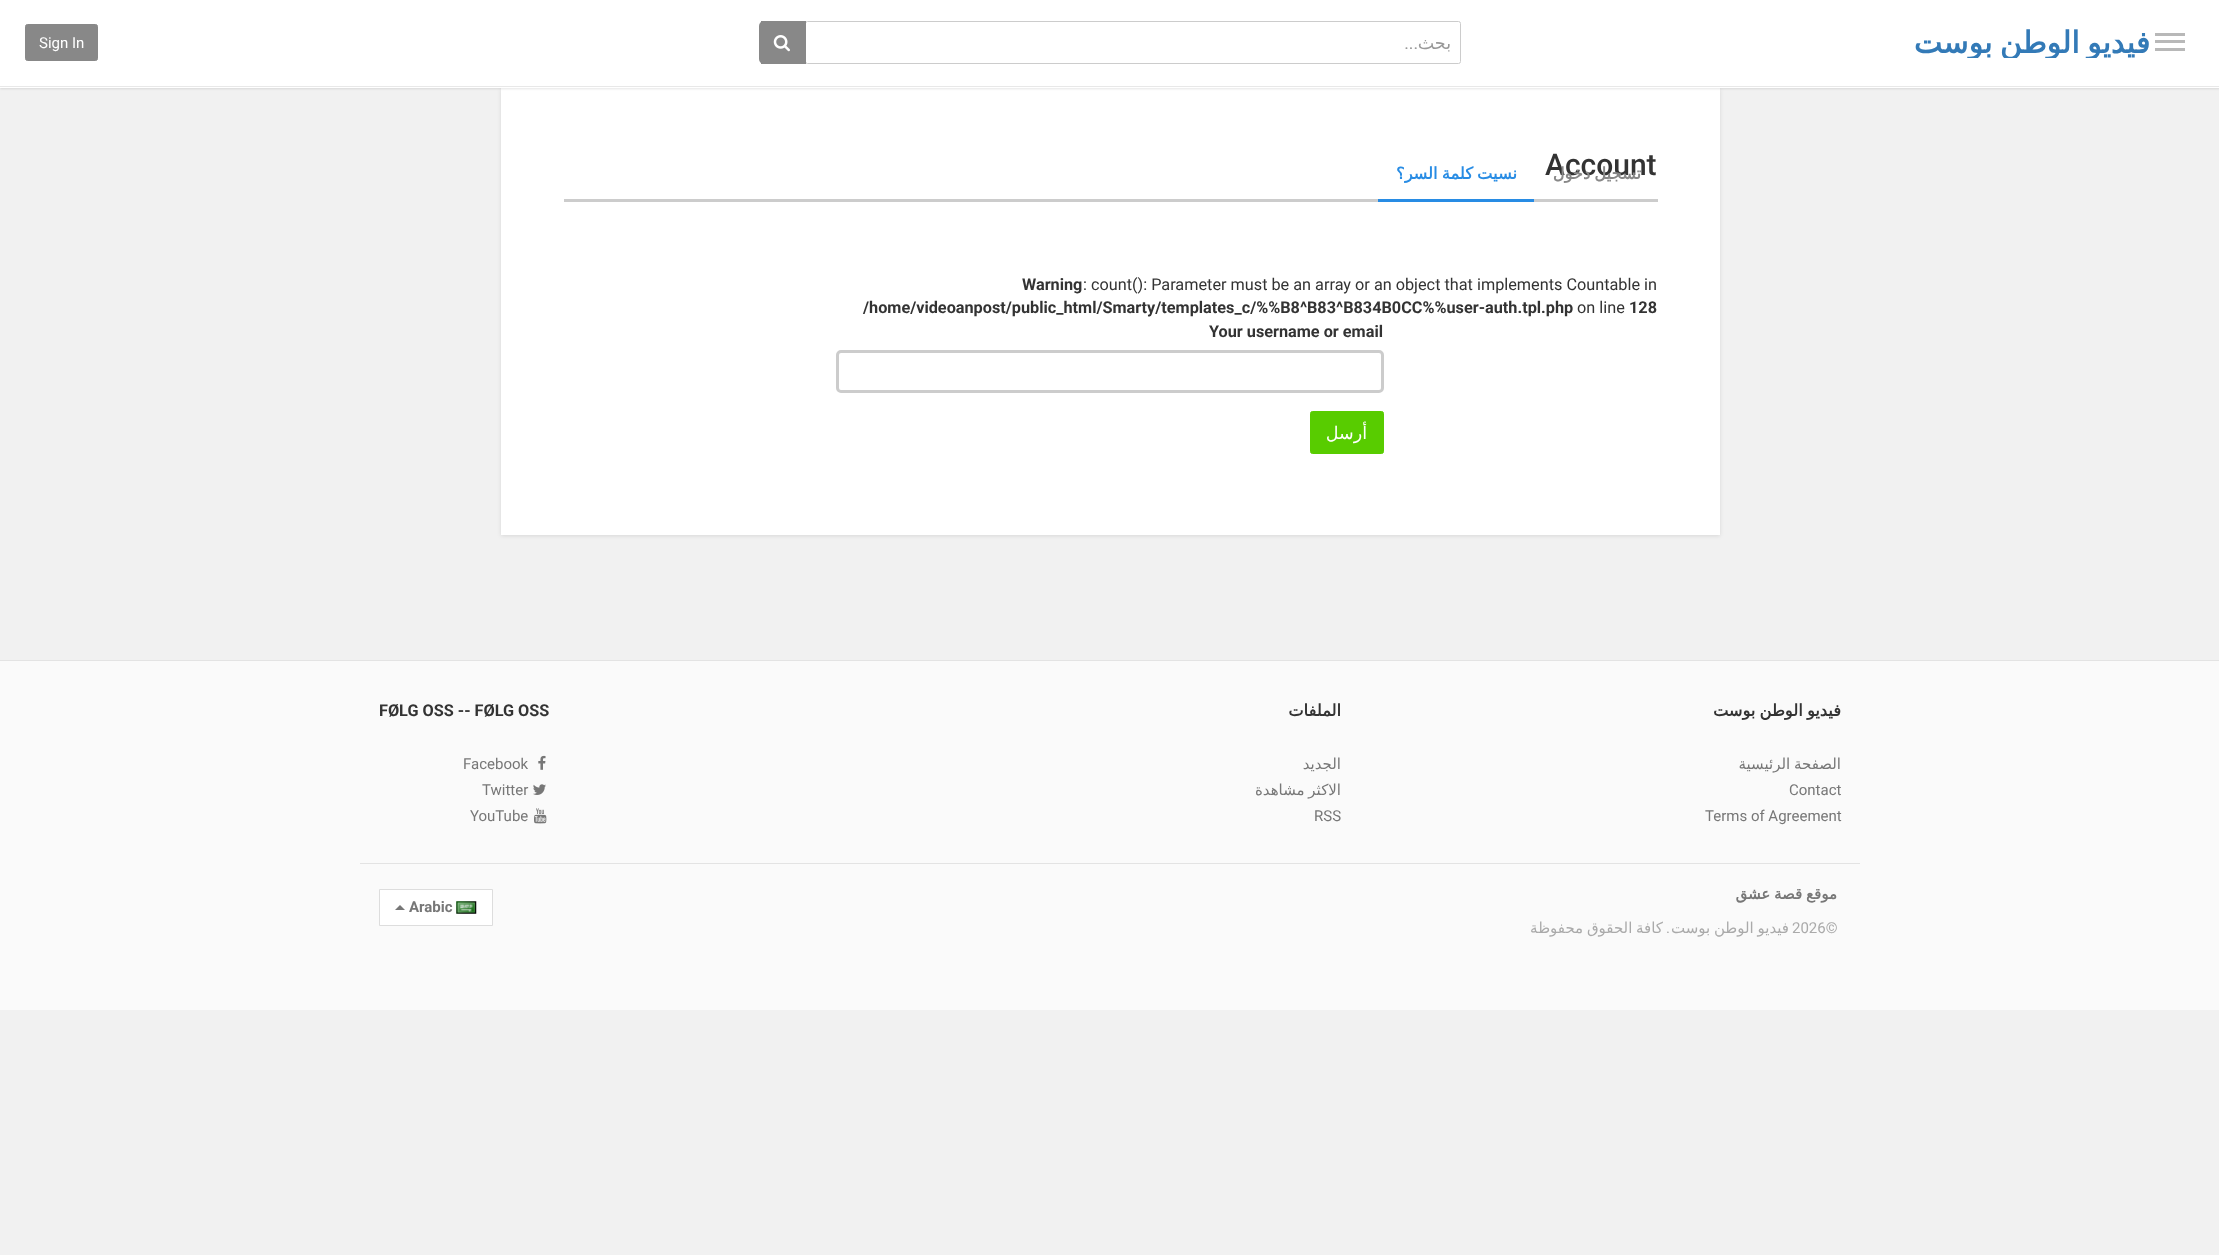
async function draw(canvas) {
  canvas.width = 2219;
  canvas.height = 1255;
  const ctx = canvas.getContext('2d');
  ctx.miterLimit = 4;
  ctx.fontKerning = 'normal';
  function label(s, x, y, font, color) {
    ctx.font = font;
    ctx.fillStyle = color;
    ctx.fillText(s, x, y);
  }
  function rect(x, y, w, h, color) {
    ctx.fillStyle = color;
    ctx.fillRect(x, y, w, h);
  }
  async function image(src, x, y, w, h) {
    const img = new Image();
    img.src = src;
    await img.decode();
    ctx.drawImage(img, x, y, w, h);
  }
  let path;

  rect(0, 0, 2219, 1255, '#f1f1f1');
  rect(501, 88, 1219, 447, '#fff');
  ctx.fillStyle = '#0000001a';
  ctx.filter = 'blur(1px)';
  ctx.beginPath();
  ctx.rect(0, 1, 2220, 88);
  ctx.fill();
  ctx.filter = 'none';
  ctx.save();
  path = new Path2D('M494 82H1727V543H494ZM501 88H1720V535H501Z');
  ctx.clip(path, 'evenodd');
  ctx.filter = 'blur(2px)';
  ctx.beginPath();
  ctx.rect(501, 89, 1219, 447);
  ctx.fill();
  ctx.filter = 'none';
  ctx.restore();
  rect(0, 0, 2219, 88, '#fff');
  rect(0, 86, 2219, 1, '#e8e8e8');
  ctx.fillStyle = '#888';
  ctx.beginPath();
  ctx.roundRect(25.5, 24.5, 72, 36, 2);
  ctx.fill();
  ctx.strokeStyle = '#888';
  ctx.stroke();
  label('Sign In', 39, 48, '15px Roboto', '#fff');
  ctx.beginPath();
  ctx.roundRect(805.5, 21.5, 655, 42, 2);
  ctx.strokeStyle = '#ccc';
  ctx.stroke();
  ctx.fillStyle = '#888';
  ctx.beginPath();
  ctx.roundRect(759, 21, 47, 43, [5, 0, 0, 5]);
  ctx.fill();
  rect(761, 21, 3, 1, '#888');
  rect(761, 63, 3, 1, '#888');
  await image('assets/img1.png', 773, 35, 17, 17);
  ctx.direction = 'rtl';
  label('...', 1418, 49, '17.5px Roboto', '#999');
  label('بحث', 1451, 49, '17.5px DejaVu Sans', '#999');
  ctx.save();
  ctx.beginPath();
  ctx.rect(1914, 28, 236, 30);
  ctx.clip();
  ctx.wordSpacing = '-2px';
  label('فيديو الوطن بوست', 2150, 53, 'bold 30px DejaVu Sans', '#337ab7');
  ctx.restore();
  rect(2155, 40, 30, 3, '#b8b8b8');
  rect(2155, 33, 30, 3, '#b8b8b8');
  rect(2155, 48, 30, 3, '#b8b8b8');
  ctx.direction = 'ltr';
  label('Account', 1545, 175, '500 30px Roboto', '#333');
  rect(564, 199, 1094, 3, '#ccc');
  rect(1378, 199, 156, 3, '#288ce4');
  ctx.wordSpacing = '-1px';
  ctx.direction = 'rtl';
  label('نسيت كلمة السر؟', 1517, 179, 'bold 16.25px DejaVu Sans', '#288ce4');
  label('تسجيل دخول', 1641, 179, 'bold 16.25px DejaVu Sans', '#888');
  ctx.wordSpacing = '0px';
  ctx.direction = 'ltr';
  label('Warning', 1022, 290, 'bold 16.25px Roboto', '#333');
  label(': count(): Parameter must be an array or an object that implements Countable in', 1083, 290, '16.25px Roboto', '#333');
  label('/home/videoanpost/public_html/Smarty/templates_c/%%B8^B83^B834B0CC%%user-auth.tpl.php', 863, 313, 'bold 16.25px Roboto', '#333');
  label('on line', 1577, 313, '16.25px Roboto', '#333');
  label('128', 1629, 313, 'bold 16.25px Roboto', '#333');
  label('Your username or email', 1209, 337, 'bold 16.25px Roboto', '#333');
  ctx.beginPath();
  ctx.roundRect(837.5, 351.5, 545, 40, 3.5);
  ctx.lineWidth = 3;
  ctx.stroke();
  ctx.fillStyle = '#58cc00';
  ctx.beginPath();
  ctx.roundRect(1310.5, 411.5, 73, 42, 2);
  ctx.fill();
  ctx.strokeStyle = '#58cc00';
  ctx.lineWidth = 1;
  ctx.stroke();
  ctx.direction = 'rtl';
  label('أرسل', 1367, 439, '17.5px DejaVu Sans', '#fff');
  rect(0, 661, 2219, 349, '#fafafa');
  rect(0, 660, 2219, 1, '#e3e3e3');
  ctx.direction = 'ltr';
  label('FØLG OSS -- FØLG OSS', 379, 716, 'bold 16.25px Roboto', '#333');
  label('Facebook', 463, 769, '15px Roboto', '#777');
  await image('assets/img2.png', 538, 755, 8, 15);
  label('Twitter', 482, 795, '15px Roboto', '#777');
  await image('assets/img3.png', 533, 784, 13, 11);
  label('YouTube', 470, 821, '15px Roboto', '#777');
  await image('assets/img4.png', 534, 808, 13, 16);
  ctx.direction = 'rtl';
  label('الملفات', 1341, 716, 'bold 16.25px DejaVu Sans', '#333');
  label('الجديد', 1341, 769, '15px DejaVu Sans', '#777');
  ctx.wordSpacing = '-1px';
  label('الاكثر مشاهدة', 1341, 795, '15px DejaVu Sans', '#777');
  ctx.wordSpacing = '0px';
  ctx.direction = 'ltr';
  label('RSS', 1314, 821, '15px Roboto', '#777');
  ctx.wordSpacing = '-1px';
  ctx.direction = 'rtl';
  label('فيديو الوطن بوست', 1841, 716, 'bold 16.25px DejaVu Sans', '#333');
  label('الصفحة الرئيسية', 1841, 769, '15px DejaVu Sans', '#777');
  ctx.wordSpacing = '0px';
  ctx.direction = 'ltr';
  label('Contact', 1789, 795, '15px Roboto', '#777');
  label('Terms of Agreement', 1705, 821, '15px Roboto', '#777');
  rect(360, 863, 1500, 1, '#e3e3e3');
  ctx.fillStyle = '#fff';
  ctx.beginPath();
  ctx.rect(379.5, 889.5, 113, 36);
  ctx.fill();
  ctx.strokeStyle = '#ddd';
  ctx.stroke();
  ctx.fillStyle = '#777';
  path = new Path2D('M405 910H395L400 905Z');
  ctx.fill(path);
  label('Arabic', 409, 912, 'bold 15px Roboto', '#777');
  await image('assets/img5.png', 456, 901, 21, 13);
  ctx.wordSpacing = '-1px';
  ctx.direction = 'rtl';
  label('موقع قصة عشق', 1837, 899, 'bold 15px DejaVu Sans', '#777');
  label('كافة الحقوق محفوظة', 1663, 933, '15px DejaVu Sans', '#aaa');
  ctx.wordSpacing = '0px';
  label('.', 1670, 933, '15px Roboto', '#aaa');
  ctx.wordSpacing = '-1px';
  label('فيديو الوطن بوست', 1789, 933, '15px DejaVu Sans', '#aaa');
  ctx.wordSpacing = '0px';
  ctx.direction = 'ltr';
  label('2026©', 1792, 933, '15px Roboto', '#aaa');
}

draw(document.querySelector('canvas'));
